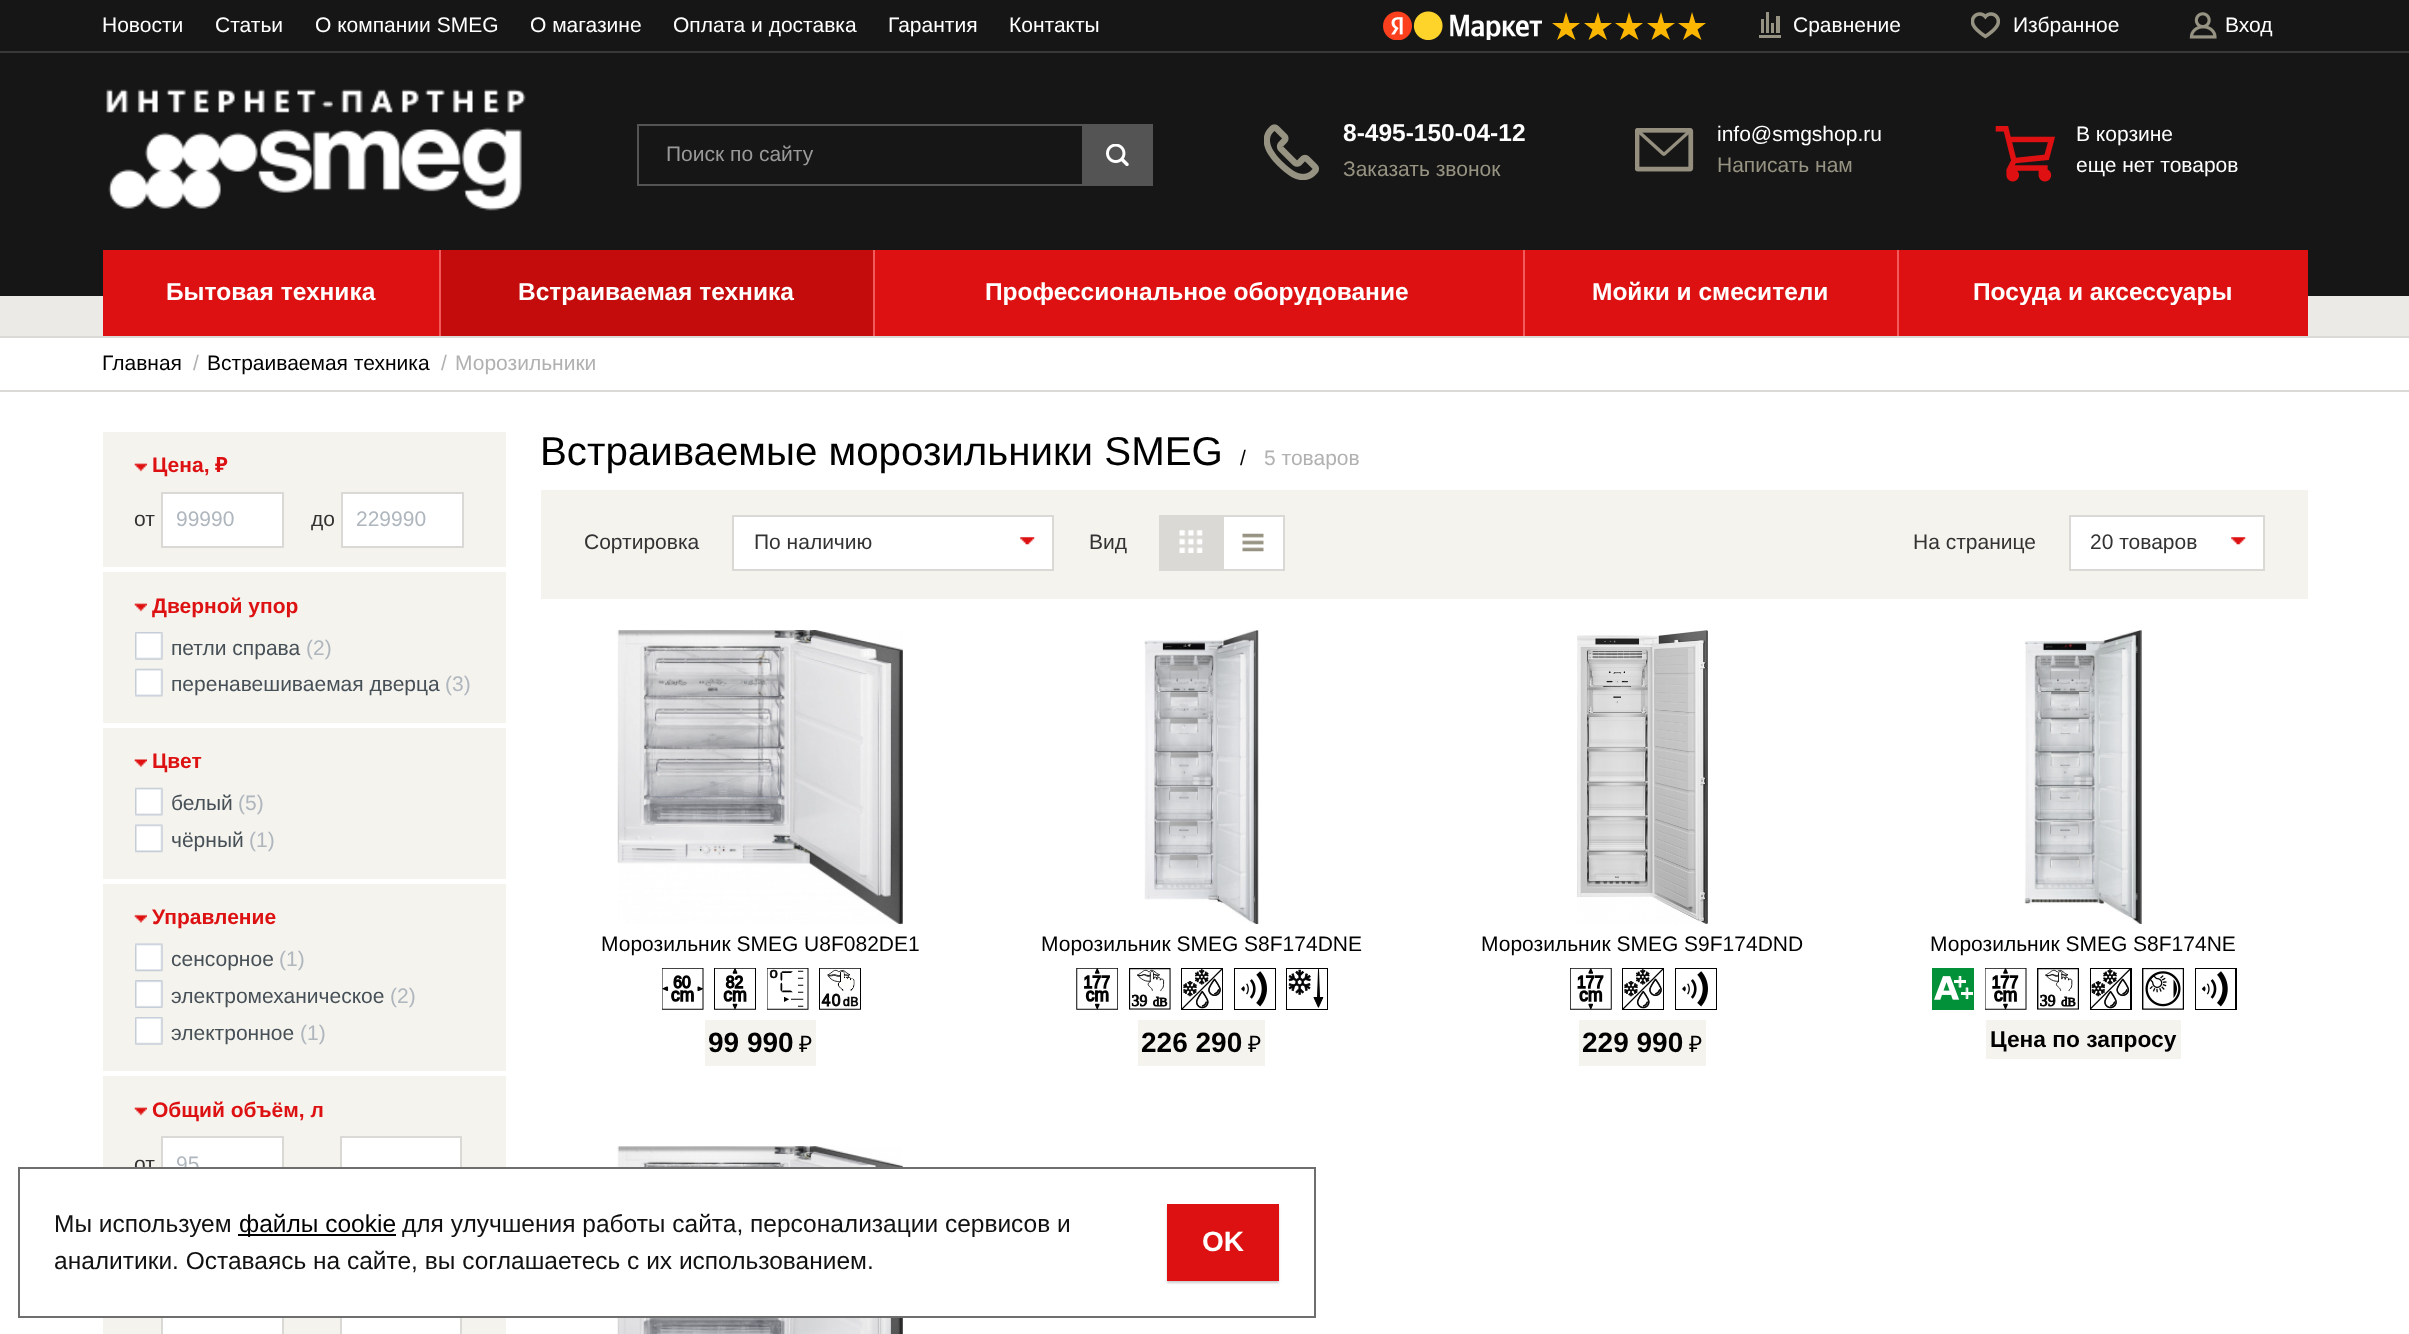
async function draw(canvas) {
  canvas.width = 2409;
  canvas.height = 1334;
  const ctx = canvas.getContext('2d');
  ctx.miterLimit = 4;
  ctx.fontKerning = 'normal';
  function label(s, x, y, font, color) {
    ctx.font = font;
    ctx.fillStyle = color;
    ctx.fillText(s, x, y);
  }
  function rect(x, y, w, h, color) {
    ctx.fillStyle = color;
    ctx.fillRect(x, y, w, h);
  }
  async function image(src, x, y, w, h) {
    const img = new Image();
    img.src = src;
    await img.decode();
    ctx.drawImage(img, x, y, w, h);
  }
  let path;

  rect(0, 0, 2409, 1334, '#fff');
  rect(0, 296, 2409, 40, '#ebeae6');
  rect(0, 336, 2409, 2, '#dbd9d6');
  rect(0, 0, 2409, 296, '#161616');
  rect(0, 51, 2409, 2, '#383838');
  label('Новости', 102, 32, '21px Liberation Sans', '#fff');
  label('Статьи', 215, 32, '21px Liberation Sans', '#fff');
  label('О компании SMEG', 315, 32, '21px Liberation Sans', '#fff');
  label('О магазине', 530, 32, '21px Liberation Sans', '#fff');
  label('Оплата и доставка', 673, 32, '21px Liberation Sans', '#fff');
  label('Гарантия', 888, 32, '21px Liberation Sans', '#fff');
  label('Контакты', 1009, 32, '21px Liberation Sans', '#fff');
  await image('assets/img1.png', 1383, 11, 159, 29);
  ctx.fillStyle = '#fab600';
  path = new Path2D('M1566 12L1569.5 23H1580L1571.5 29.5L1575.5 40L1566 34L1557 40L1561 29.5L1552 23H1563ZM1598 12L1601 23H1612L1603 29.5L1607 40L1598 34L1588.5 40L1592.5 29.5L1584 23H1594.5Z');
  ctx.fill(path, 'evenodd');
  path = new Path2D('M1629 12L1632.5 23H1643L1634.5 29.5L1638.5 40L1629 34L1620 40L1624 29.5L1615 23H1626ZM1661 12L1664 23H1675L1666 29.5L1670 40L1661 34L1651.5 40L1655.5 29.5L1647 23H1657.5Z');
  ctx.fill(path, 'evenodd');
  path = new Path2D('M1692 12L1695.5 23H1706L1697.5 29.5L1701.5 40L1692 34L1683 40L1687 29.5L1678 23H1689Z');
  ctx.fill(path, 'evenodd');
  rect(1759, 35, 22, 3, '#979383');
  rect(1761, 19, 3, 14, '#979383');
  rect(1766, 12, 3, 21, '#979383');
  rect(1771, 23, 3, 10, '#979383');
  rect(1776, 16, 4, 17, '#979383');
  label('Сравнение', 1793, 32, '21px Liberation Sans', '#fff');
  await image('assets/img2.png', 1971, 12, 29, 27);
  label('Избранное', 2013, 32, '21px Liberation Sans', '#fff');
  await image('assets/img3.png', 2189, 12, 28, 27);
  label('Вход', 2225, 32, '21px Liberation Sans', '#fff');
  await image('assets/img4.png', 106, 89, 420, 122);
  ctx.strokeStyle = '#545454';
  ctx.lineWidth = 2;
  ctx.strokeRect(638, 125, 514, 60);
  label('Поиск по сайту', 666, 161, '21px Liberation Sans', '#999');
  rect(1082, 126, 69, 58, '#545454');
  await image('assets/img5.png', 1106, 144, 23, 22);
  await image('assets/img6.png', 1264, 124, 55, 56);
  label('8-495-150-04-12', 1343, 141, 'bold 24.5px Liberation Sans', '#fff');
  label('Заказать звонок', 1343, 176, '21px Liberation Sans', '#979382');
  await image('assets/img7.png', 1635, 128, 59, 44);
  label('info@smgshop.ru', 1717, 141, '21px Liberation Sans', '#fff');
  label('Написать нам', 1717, 172, '21px Liberation Sans', '#979382');
  await image('assets/img8.png', 1995, 126, 60, 56);
  label('В корзине', 2076, 141, '21px Liberation Sans', '#fff');
  label('еще нет товаров', 2076, 172, '21px Liberation Sans', '#fff');
  rect(103, 250, 2205, 86, '#d11');
  label('Бытовая техника', 166, 300, 'bold 24.5px Liberation Sans', '#fff');
  rect(441, 250, 432, 86, '#c40c0c');
  rect(439, 250, 2, 86, '#f25b5b');
  label('Встраиваемая техника', 518, 300, 'bold 24.5px Liberation Sans', '#fff');
  rect(873, 250, 2, 86, '#f25b5b');
  label('Профессиональное оборудование', 985, 300, 'bold 24.5px Liberation Sans', '#fff');
  rect(1523, 250, 2, 86, '#f25b5b');
  label('Мойки и смесители', 1592, 300, 'bold 24.5px Liberation Sans', '#fff');
  rect(1897, 250, 2, 86, '#f25b5b');
  label('Посуда и аксессуары', 1973, 300, 'bold 24.5px Liberation Sans', '#fff');
  rect(0, 390, 2409, 2, '#dbd9d6');
  label('Главная', 102, 370, '21px Liberation Sans', '#000');
  label('/', 193, 370, '21px Liberation Sans', '#b1b1b1');
  label('Встраиваемая техника', 207, 370, '21px Liberation Sans', '#000');
  label('/', 441, 370, '21px Liberation Sans', '#b1b1b1');
  label('Морозильники', 455, 370, '21px Liberation Sans', '#b1b1b1');
  rect(103, 432, 403, 902, '#f4f3ee');
  await image('assets/img9.png', 134, 463, 13, 9);
  label('Цена,', 152, 472, 'bold 21px Liberation Sans', '#d11');
  label('₽', 215, 472, 'bold 21px Noto Sans', '#d11');
  label('от', 134, 526, '21px Liberation Sans', '#333');
  ctx.fillStyle = '#fff';
  ctx.beginPath();
  ctx.rect(162, 493, 121, 54);
  ctx.fill();
  ctx.strokeStyle = '#dbd9d6';
  ctx.stroke();
  label('99990', 176, 526, '21px Liberation Sans', '#afb6bd');
  label('до', 311, 526, '21px Liberation Sans', '#333');
  ctx.fillStyle = '#fff';
  ctx.beginPath();
  ctx.rect(342, 493, 121, 54);
  ctx.fill();
  ctx.stroke();
  label('229990', 356, 526, '21px Liberation Sans', '#afb6bd');
  rect(103, 567, 403, 5, '#fff');
  await image('assets/img9.png', 134, 603, 13, 9);
  label('Дверной упор', 152, 613, 'bold 21px Liberation Sans', '#d11');
  await image('assets/img10.png', 135, 632, 28, 28);
  label('петли справа', 171, 655, '21px Liberation Sans', '#475057');
  label('(2)', 306, 655, '21px Liberation Sans', '#afb6bd');
  await image('assets/img11.png', 135, 668, 28, 29);
  label('перенавешиваемая дверца', 171, 691, '21px Liberation Sans', '#475057');
  label('(3)', 445, 691, '21px Liberation Sans', '#afb6bd');
  rect(103, 723, 403, 5, '#fff');
  await image('assets/img12.png', 134, 759, 13, 8);
  label('Цвет', 152, 768, 'bold 21px Liberation Sans', '#d11');
  await image('assets/img11.png', 135, 787, 28, 29);
  label('белый', 171, 810, '21px Liberation Sans', '#475057');
  label('(5)', 238, 810, '21px Liberation Sans', '#afb6bd');
  await image('assets/img13.png', 135, 824, 28, 29);
  label('чёрный', 171, 847, '21px Liberation Sans', '#475057');
  label('(1)', 249, 847, '21px Liberation Sans', '#afb6bd');
  rect(103, 879, 403, 5, '#fff');
  await image('assets/img14.png', 134, 914, 13, 9);
  label('Управление', 152, 924, 'bold 21px Liberation Sans', '#d11');
  await image('assets/img13.png', 135, 943, 28, 29);
  label('сенсорное', 171, 966, '21px Liberation Sans', '#475057');
  label('(1)', 279, 966, '21px Liberation Sans', '#afb6bd');
  await image('assets/img15.png', 135, 980, 28, 28);
  label('электромеханическое', 171, 1003, '21px Liberation Sans', '#475057');
  label('(2)', 390, 1003, '21px Liberation Sans', '#afb6bd');
  await image('assets/img10.png', 135, 1017, 28, 28);
  label('электронное', 171, 1040, '21px Liberation Sans', '#475057');
  label('(1)', 300, 1040, '21px Liberation Sans', '#afb6bd');
  rect(103, 1071, 403, 5, '#fff');
  await image('assets/img9.png', 134, 1107, 13, 9);
  label('Общий объём, л', 152, 1117, 'bold 21px Liberation Sans', '#d11');
  label('от', 134, 1171, '21px Liberation Sans', '#333');
  rect(163, 1138, 119, 29, '#fff');
  ctx.strokeRect(162, 1137, 121, 54);
  label('95', 176, 1171, '21px Liberation Sans', '#afb6bd');
  rect(342, 1138, 118, 29, '#fff');
  ctx.strokeRect(341, 1137, 120, 54);
  rect(163, 1318, 119, 16, '#fff');
  ctx.strokeRect(162, 1310, 121, 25);
  rect(342, 1318, 118, 16, '#fff');
  ctx.strokeRect(341, 1310, 120, 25);
  label('Встраиваемые морозильники SMEG', 540, 465, '40.25px Liberation Sans', '#000');
  label('/', 1240, 465, '21px Liberation Sans', '#000');
  label('5 товаров', 1264, 465, '21px Liberation Sans', '#b1b1b1');
  rect(541, 490, 1767, 109, '#f4f3ee');
  label('Сортировка', 584, 549, '21px Liberation Sans', '#333');
  ctx.fillStyle = '#fff';
  ctx.beginPath();
  ctx.rect(733, 516, 320, 54);
  ctx.fill();
  ctx.stroke();
  label('По наличию', 754, 549, '21px Liberation Sans', '#333');
  await image('assets/img16.png', 1020, 537, 15, 8);
  label('Вид', 1089, 549, '21px Liberation Sans', '#333');
  rect(1224, 517, 59, 52, '#fff');
  ctx.strokeRect(1160, 516, 124, 54);
  rect(1161, 517, 61, 52, '#dbd9d6');
  await image('assets/img17.png', 1179, 530, 24, 23);
  rect(1222, 516, 2, 53, '#dbd9d6');
  await image('assets/img18.png', 1242, 533, 22, 19);
  label('На странице', 1913, 549, '21px Liberation Sans', '#333');
  ctx.fillStyle = '#fff';
  ctx.beginPath();
  ctx.rect(2070, 516, 194, 54);
  ctx.fill();
  ctx.stroke();
  label('20 товаров', 2090, 549, '21px Liberation Sans', '#333');
  await image('assets/img16.png', 2231, 537, 15, 8);
  await image('assets/img19.png', 617, 630, 286, 294);
  label('Морозильник SMEG U8F082DE1', 601, 951, '21px Liberation Sans', '#000');
  await image('assets/img20.png', 662, 968, 42, 42);
  await image('assets/img21.png', 714, 968, 42, 42);
  await image('assets/img22.png', 767, 968, 42, 42);
  await image('assets/img23.png', 819, 968, 42, 42);
  rect(705, 1020, 111, 46, '#f4f3ee');
  label('99 990', 708, 1052, 'bold 28px Liberation Sans', '#000');
  label('₽', 799, 1052, '22.75px Noto Sans', '#000');
  await image('assets/img24.png', 1144, 630, 115, 294);
  label('Морозильник SMEG S8F174DNE', 1041, 951, '21px Liberation Sans', '#000');
  await image('assets/img25.png', 1076, 968, 42, 42);
  await image('assets/img26.png', 1129, 968, 42, 42);
  await image('assets/img27.png', 1181, 968, 42, 42);
  await image('assets/img28.png', 1234, 968, 42, 42);
  await image('assets/img29.png', 1286, 968, 42, 42);
  rect(1138, 1020, 127, 46, '#f4f3ee');
  label('226 290', 1141, 1052, 'bold 28px Liberation Sans', '#000');
  label('₽', 1248, 1052, '22.75px Noto Sans', '#000');
  await image('assets/img30.png', 1577, 630, 131, 294);
  label('Морозильник SMEG S9F174DND', 1481, 951, '21px Liberation Sans', '#000');
  await image('assets/img31.png', 1570, 968, 42, 42);
  await image('assets/img27.png', 1622, 968, 42, 42);
  await image('assets/img28.png', 1675, 968, 42, 42);
  rect(1579, 1020, 127, 46, '#f4f3ee');
  label('229 990', 1582, 1052, 'bold 28px Liberation Sans', '#000');
  label('₽', 1689, 1052, '22.75px Noto Sans', '#000');
  await image('assets/img32.png', 2024, 630, 118, 294);
  label('Морозильник SMEG S8F174NE', 1930, 951, '21px Liberation Sans', '#000');
  await image('assets/img33.png', 1932, 968, 42, 42);
  await image('assets/img34.png', 1985, 968, 42, 42);
  await image('assets/img35.png', 2037, 968, 42, 42);
  await image('assets/img36.png', 2090, 968, 42, 42);
  await image('assets/img37.png', 2142, 968, 42, 42);
  await image('assets/img38.png', 2195, 968, 42, 42);
  rect(1986, 1020, 195, 39, '#f4f3ee');
  label('Цена по запросу', 1990, 1047, 'bold 22.75px Liberation Sans', '#000');
  await image('assets/img39.png', 617, 1146, 286, 188);
  rect(103, 1169, 800, 147, '#fff');
  ctx.strokeStyle = '#6e6e6e';
  ctx.strokeRect(19, 1168, 1296, 149);
  label('Мы используем', 54, 1232, '24.5px Liberation Sans', '#111');
  rect(238, 1234, 158, 2, '#000');
  label('файлы cookie', 239, 1232, '24.5px Liberation Sans', '#000');
  label('для улучшения работы сайта, персонализации сервисов и', 402, 1232, '24.5px Liberation Sans', '#111');
  label('аналитики. Оставаясь на сайте, вы соглашаетесь с их использованием.', 54, 1269, '24.5px Liberation Sans', '#111');
  ctx.fillStyle = '#00000033';
  ctx.filter = 'blur(1px)';
  ctx.beginPath();
  ctx.rect(1167, 1206, 112, 77);
  ctx.fill();
  ctx.filter = 'none';
  rect(1167, 1204, 112, 77, '#d11');
  label('OK', 1202, 1251, 'bold 28px Liberation Sans', '#fff');
}

draw(document.querySelector('canvas'));
